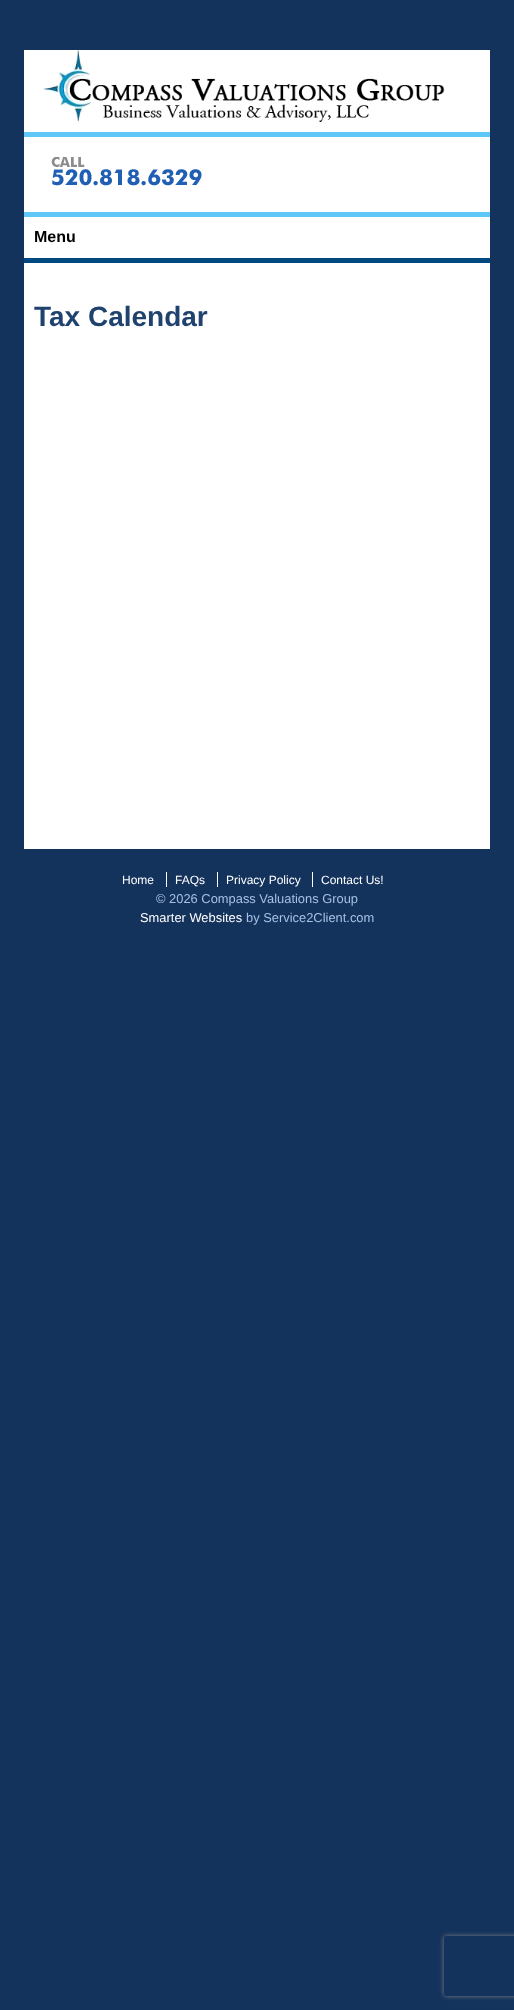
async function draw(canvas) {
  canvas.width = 514;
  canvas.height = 2010;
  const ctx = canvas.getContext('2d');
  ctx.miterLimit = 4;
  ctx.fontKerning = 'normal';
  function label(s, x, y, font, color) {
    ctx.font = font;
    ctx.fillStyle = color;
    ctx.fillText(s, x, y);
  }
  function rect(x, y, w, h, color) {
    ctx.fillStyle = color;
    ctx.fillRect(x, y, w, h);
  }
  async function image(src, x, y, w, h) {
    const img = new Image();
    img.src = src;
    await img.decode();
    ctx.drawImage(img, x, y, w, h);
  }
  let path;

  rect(0, 0, 514, 2010, '#13325c');
  rect(24, 50, 466, 799, '#fff');
  rect(24, 212, 466, 5, '#5fc8f8');
  await image('assets/img1.png', 43, 50, 402, 72);
  rect(24, 132, 466, 5, '#5fc8f8');
  await image('assets/img2.png', 51, 157, 151, 29);
  label('Menu', 34, 242, 'bold 16px Liberation Sans', '#000');
  rect(24, 258, 466, 5, '#014a81');
  label('Tax Calendar', 34, 326, 'bold 28px Liberation Sans', '#20426f');
  label('Home', 122, 884, '12px Liberation Sans', '#fff');
  label('FAQs', 175, 884, '12px Liberation Sans', '#fff');
  rect(166, 872, 1, 15, '#fff');
  label('Privacy Policy', 226, 884, '12px Liberation Sans', '#fff');
  rect(217, 872, 1, 15, '#fff');
  label('Contact Us!', 321, 884, '12px Liberation Sans', '#fff');
  rect(312, 872, 1, 15, '#fff');
  label('© 2026 Compass Valuations Group', 156, 903, '12.9px Liberation Sans', '#a6c1e4');
  label('Smarter Websites', 140, 922, '12.9px Liberation Sans', '#fff');
  label('by Service2Client.com', 246, 922, '12.9px Liberation Sans', '#a6c1e4');
  ctx.save();
  path = new Path2D('M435 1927H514V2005H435ZM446 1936H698C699 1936 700 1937 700 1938V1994C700 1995 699 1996 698 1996H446C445 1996 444 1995 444 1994V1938C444 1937 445 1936 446 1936Z');
  ctx.clip(path, 'evenodd');
  ctx.fillStyle = '#808080';
  ctx.filter = 'blur(2.5px)';
  ctx.beginPath();
  ctx.roundRect(444, 1936, 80, 60, 2);
  ctx.fill();
  ctx.filter = 'none';
  ctx.restore();
}

draw(document.querySelector('canvas'));
